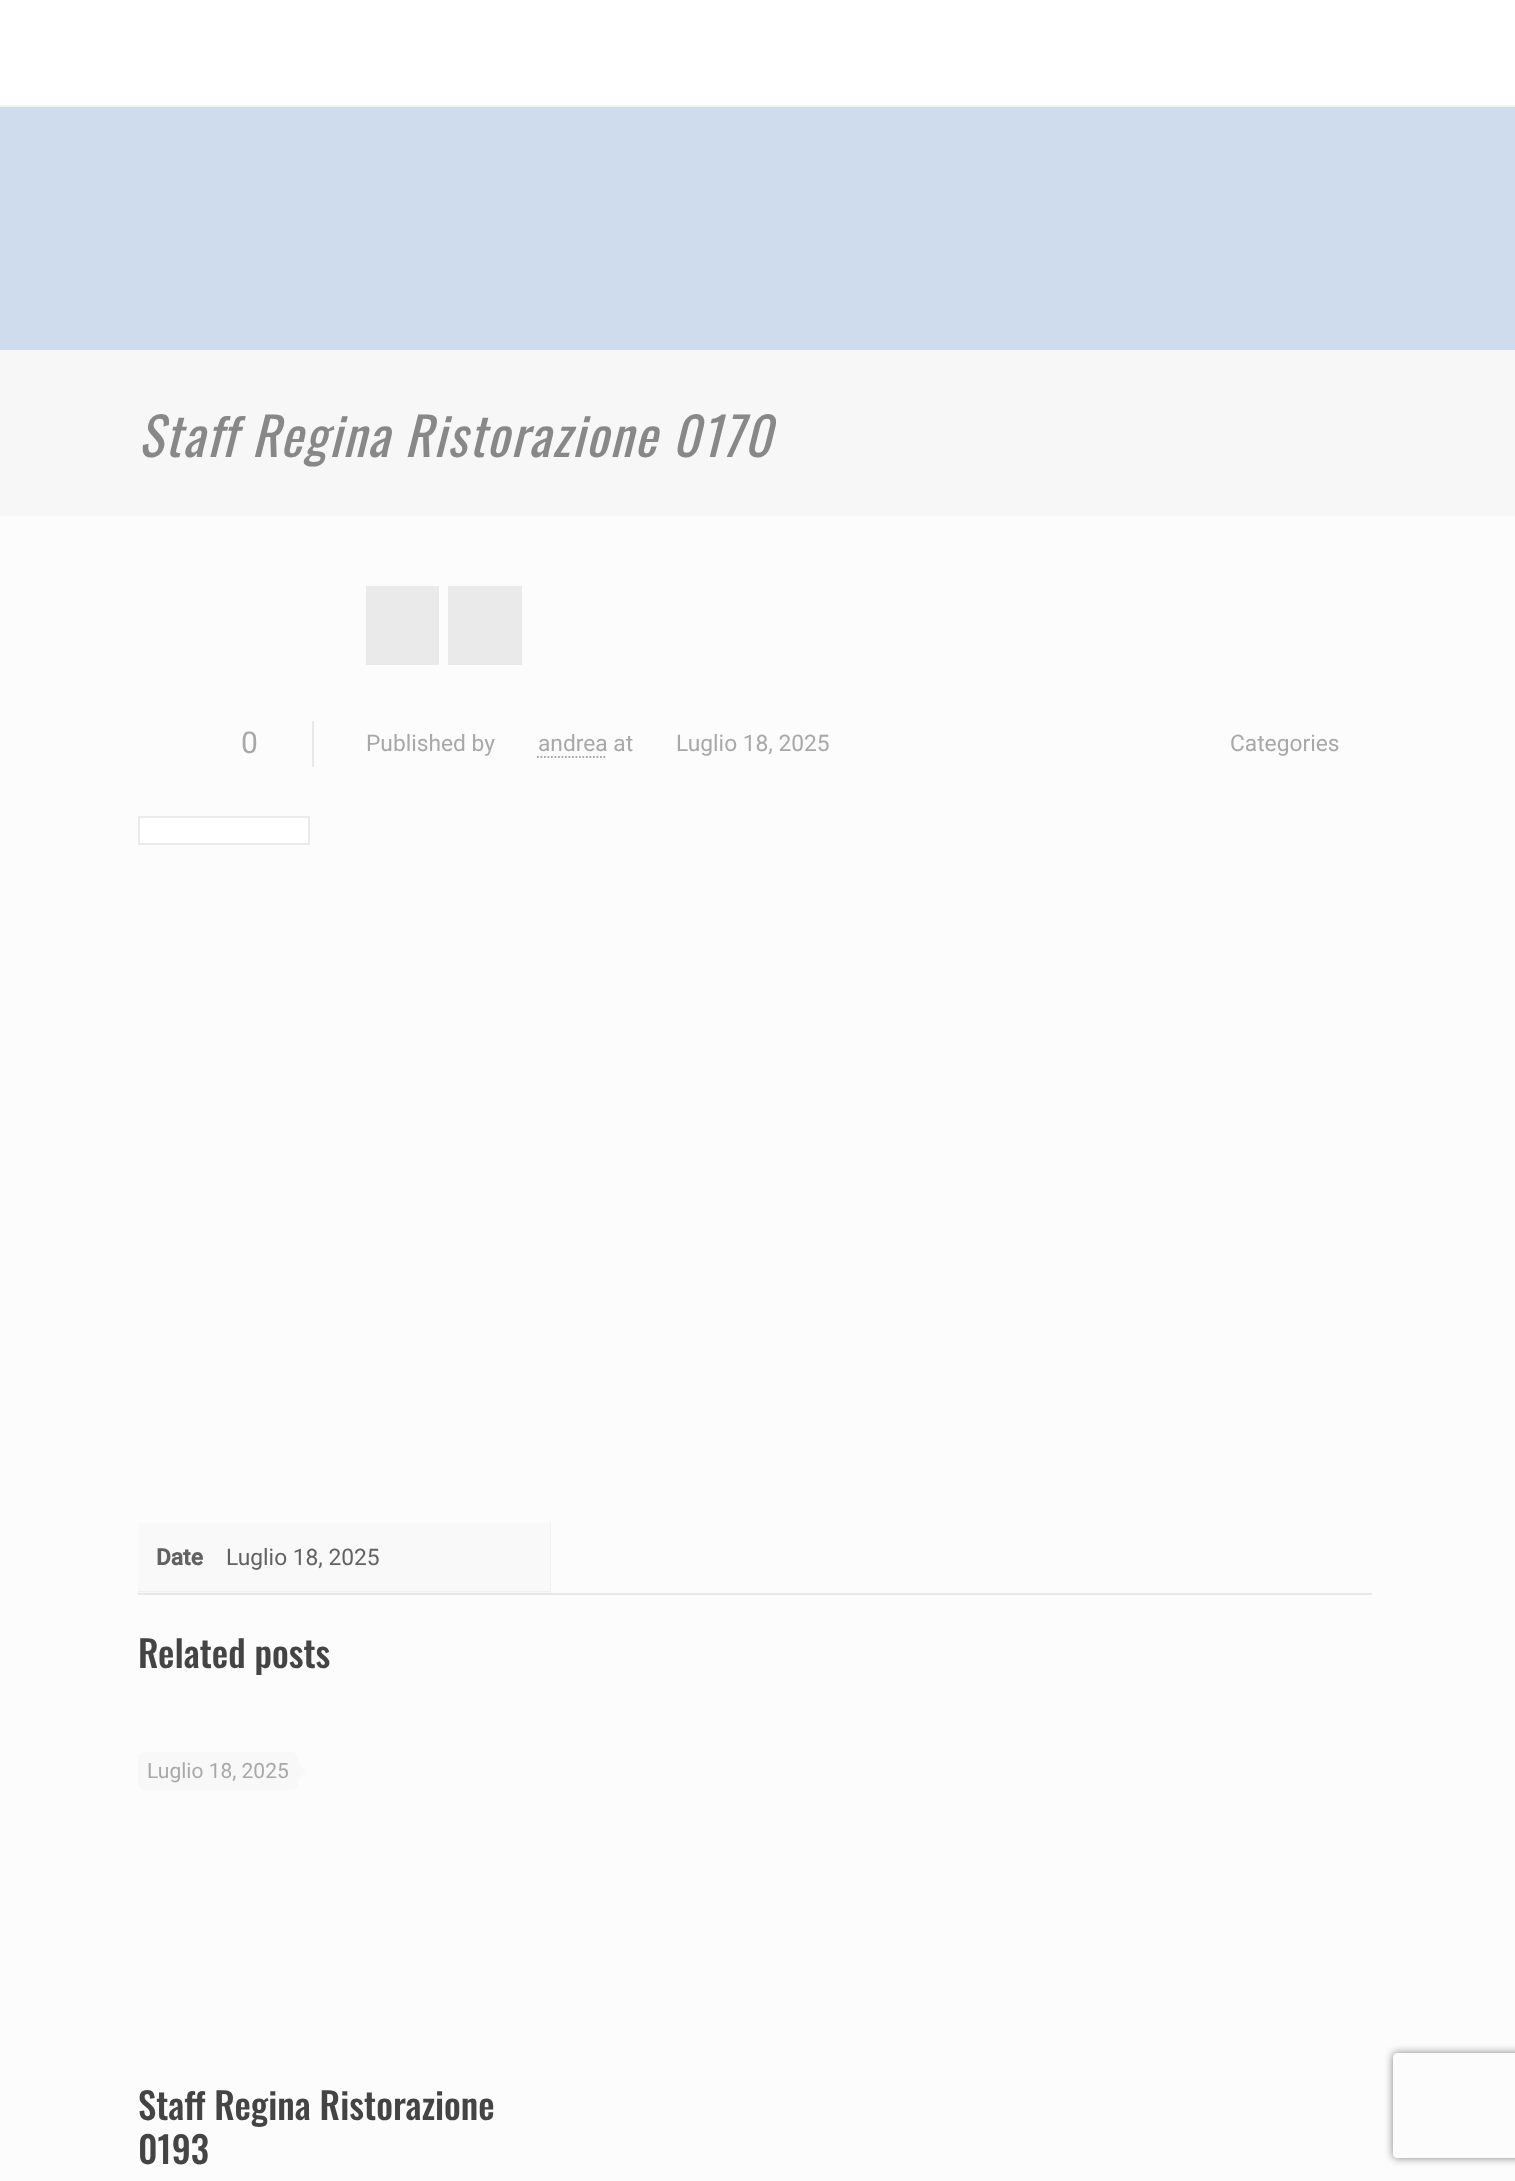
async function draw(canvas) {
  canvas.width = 1515;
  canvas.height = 2181;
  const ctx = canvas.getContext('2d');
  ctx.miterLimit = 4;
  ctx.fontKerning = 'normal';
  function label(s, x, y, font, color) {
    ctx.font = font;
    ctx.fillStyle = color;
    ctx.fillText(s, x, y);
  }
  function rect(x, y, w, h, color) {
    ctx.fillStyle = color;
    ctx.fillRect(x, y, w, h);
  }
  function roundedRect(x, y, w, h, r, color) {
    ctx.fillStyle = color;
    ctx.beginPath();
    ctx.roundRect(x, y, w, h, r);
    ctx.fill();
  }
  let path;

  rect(0, 0, 1515, 2181, '#fcfcfc');
  rect(0, 107, 1515, 243, '#cedced');
  rect(0, 0, 1515, 105, '#fff');
  rect(0, 105, 1515, 2, '#f2f2f2');
  rect(0, 350, 1515, 166, '#f7f7f7');
  ctx.letterSpacing = '1.75px';
  label('Staff Regina Ristorazione 0170', 138, 457, 'italic 52.5px Oswald', '#888');
  rect(366, 586, 73, 79, '#eaeaea');
  rect(448, 586, 74, 79, '#eaeaea');
  ctx.letterSpacing = '0px';
  label('0', 241, 753, '30px Roboto', '#a8a8a8');
  rect(312, 721, 2, 46, '#e8e8e8');
  label('Published by', 366, 751, '22.75px Roboto', '#a8a8a8');
  label('andrea at', 538, 751, '22.75px Roboto', '#a8a8a8');
  path = new Path2D('M537 757H607');
  ctx.strokeStyle = '#a8a8a8';
  ctx.lineWidth = 1.8;
  ctx.setLineDash([1.75, 1.75]);
  ctx.stroke(path);
  label('Luglio 18, 2025', 676, 751, '22.75px Roboto', '#a8a8a8');
  label('Categories', 1230, 751, '22.75px Roboto', '#a8a8a8');
  ctx.fillStyle = '#fff';
  ctx.beginPath();
  ctx.rect(139, 817, 170, 27);
  ctx.fill();
  ctx.strokeStyle = '#ebebeb';
  ctx.lineWidth = 2;
  ctx.setLineDash([]);
  ctx.stroke();
  rect(138, 1523, 413, 70, '#f9f9f9');
  ctx.fillStyle = '#00000008';
  path = new Path2D('M551 1522V1592L550 1591V1522Z');
  ctx.fill(path);
  path = new Path2D('M551 1592H138V1591H550Z');
  ctx.fill(path);
  label('Date', 156, 1565, 'bold 22.75px Roboto', '#626262');
  label('Luglio 18, 2025', 226, 1565, '22.75px Roboto', '#626262');
  rect(138, 1593, 1234, 2, '#e8e8e8');
  label('Related posts', 138, 1668, '500 36.75px Oswald', '#444');
  roundedRect(138, 1752, 160, 38, 7, '#f8f8f8');
  label('Luglio 18, 2025', 147, 1778, '21px Roboto', '#a8a8a8');
  ctx.fillStyle = '#f8f8f8';
  path = new Path2D('M297.5 1780V1762L306 1771Z');
  ctx.fill(path);
  label('Staff Regina Ristorazione', 138, 2120, '500 36.75px Oswald', '#444');
  label('0193', 138, 2164, '500 36.75px Oswald', '#444');
  ctx.save();
  path = new Path2D('M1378 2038H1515V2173H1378ZM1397 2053H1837C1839 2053 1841 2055 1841 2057V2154C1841 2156 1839 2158 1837 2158H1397C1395 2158 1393 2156 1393 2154V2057C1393 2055 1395 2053 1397 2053Z');
  ctx.clip(path, 'evenodd');
  ctx.fillStyle = '#808080';
  ctx.filter = 'blur(4.5px)';
  ctx.beginPath();
  ctx.roundRect(1393, 2053, 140, 105, 4);
  ctx.fill();
  ctx.filter = 'none';
  ctx.restore();
}

draw(document.querySelector('canvas'));
